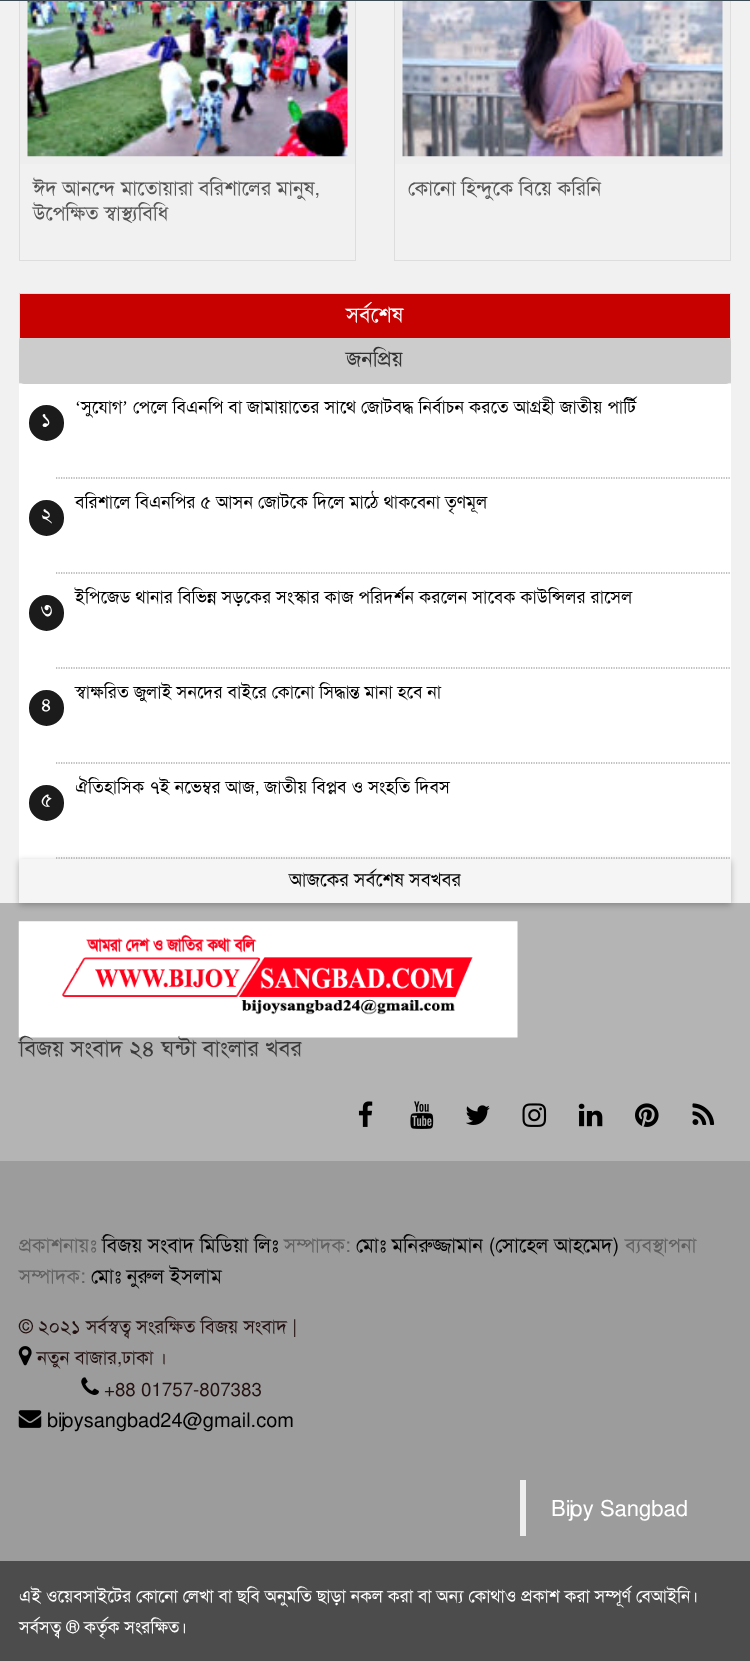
async function draw(canvas) {
  canvas.width = 750;
  canvas.height = 1661;
  const ctx = canvas.getContext('2d');
  ctx.miterLimit = 4;
  ctx.fontKerning = 'normal';
  function label(s, x, y, font, color) {
    ctx.font = font;
    ctx.fillStyle = color;
    ctx.fillText(s, x, y);
  }
  function rect(x, y, w, h, color) {
    ctx.fillStyle = color;
    ctx.fillRect(x, y, w, h);
  }
  function roundedRect(x, y, w, h, r, color) {
    ctx.fillStyle = color;
    ctx.beginPath();
    ctx.roundRect(x, y, w, h, r);
    ctx.fill();
  }
  async function image(src, x, y, w, h) {
    const img = new Image();
    img.src = src;
    await img.decode();
    ctx.drawImage(img, x, y, w, h);
  }
  let path;

  rect(0, 0, 750, 1661, '#f1f1f1');
  ctx.strokeStyle = '#ddd';
  ctx.strokeRect(19.5, -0.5, 336, 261);
  ctx.strokeRect(394.5, -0.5, 336, 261);
  rect(0, 0, 750, 1, '#3d4c54');
  rect(20, 1, 335, 163, '#eee');
  await image('assets/img1.png', 27, 1, 321, 156);
  label('ঈদ আনন্দে মাতোয়ারা বরিশালের মানুষ,', 33, 195, '20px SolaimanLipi', '#555');
  ctx.save();
  ctx.beginPath();
  ctx.rect(20, 176, 335, 47);
  ctx.clip();
  label('উপেক্ষিত স্বাস্থ্যবিধি', 33, 220, '20px SolaimanLipi', '#555');
  ctx.restore();
  rect(395, 1, 335, 163, '#eee');
  await image('assets/img2.png', 402, 1, 321, 156);
  label('কোনো হিন্দুকে বিয়ে করিনি', 408, 195, '20px SolaimanLipi', '#555');
  rect(19, 384, 712, 475, '#fff');
  rect(19, 339, 712, 44, '#d1d1d1');
  rect(19, 383, 712, 1, '#ededed');
  ctx.fillStyle = '#c70000';
  ctx.beginPath();
  ctx.rect(19.5, 293.5, 711, 45);
  ctx.fill();
  ctx.stroke();
  label('সর্বশেষ', 346, 322, '21.5px SolaimanLipi', '#fff');
  roundedRect(19, 338, 712, 46, 5, '#ccc');
  label('জনপ্রিয়', 346, 366, '21.5px SolaimanLipi', '#333');
  path = new Path2D('M56 478H731');
  ctx.strokeStyle = '#808080';
  ctx.lineWidth = 1.2;
  ctx.setLineDash([1.25, 1.25]);
  ctx.stroke(path);
  label('‘', 75, 413, '17.8px Liberation Serif', '#000');
  label('সুযোগ', 81, 413, '17.8px SolaimanLipi', '#000');
  label('’', 122, 413, '17.8px Liberation Serif', '#000');
  label('পেলে বিএনপি বা জামায়াতের সাথে জোটবদ্ধ নির্বাচন করতে আগ্রহী জাতীয় পার্টি', 133, 413, '17.8px SolaimanLipi', '#000');
  ctx.fillStyle = '#1c1b1b';
  ctx.beginPath();
  ctx.roundRect(27, 403, 39, 40, 19.5);
  ctx.fill();
  ctx.strokeStyle = '#fff';
  ctx.lineWidth = 4;
  ctx.setLineDash([]);
  ctx.stroke();
  label('১', 41, 426, '18.75px SolaimanLipi', '#fff');
  path = new Path2D('M56 573H731');
  ctx.strokeStyle = '#808080';
  ctx.lineWidth = 1.2;
  ctx.setLineDash([1.25, 1.25]);
  ctx.stroke(path);
  label('বরিশালে বিএনপির ৫ আসন জোটকে দিলে মাঠে থাকবেনা তৃণমূল', 75, 508, '17.8px SolaimanLipi', '#000');
  ctx.fillStyle = '#1c1b1b';
  ctx.beginPath();
  ctx.roundRect(27, 498, 39, 40, 19.5);
  ctx.fill();
  ctx.strokeStyle = '#fff';
  ctx.lineWidth = 4;
  ctx.setLineDash([]);
  ctx.stroke();
  label('২', 41, 521, '18.75px SolaimanLipi', '#fff');
  path = new Path2D('M56 668H731');
  ctx.strokeStyle = '#808080';
  ctx.lineWidth = 1.2;
  ctx.setLineDash([1.25, 1.25]);
  ctx.stroke(path);
  label('ইপিজেড থানার বিভিন্ন সড়কের সংস্কার কাজ পরিদর্শন করলেন সাবেক কাউন্সিলর রাসেল', 75, 603, '17.8px SolaimanLipi', '#000');
  ctx.fillStyle = '#1c1b1b';
  ctx.beginPath();
  ctx.roundRect(27, 593, 39, 40, 19.5);
  ctx.fill();
  ctx.strokeStyle = '#fff';
  ctx.lineWidth = 4;
  ctx.setLineDash([]);
  ctx.stroke();
  label('৩', 41, 616, '18.75px SolaimanLipi', '#fff');
  path = new Path2D('M56 763H731');
  ctx.strokeStyle = '#808080';
  ctx.lineWidth = 1.2;
  ctx.setLineDash([1.25, 1.25]);
  ctx.stroke(path);
  label('স্বাক্ষরিত জুলাই সনদের বাইরে কোনো সিদ্ধান্ত মানা হবে না', 75, 698, '17.8px SolaimanLipi', '#000');
  ctx.fillStyle = '#1c1b1b';
  ctx.beginPath();
  ctx.roundRect(27, 688, 39, 40, 19.5);
  ctx.fill();
  ctx.strokeStyle = '#fff';
  ctx.lineWidth = 4;
  ctx.setLineDash([]);
  ctx.stroke();
  label('৪', 41, 711, '18.75px SolaimanLipi', '#fff');
  rect(0, 903, 750, 258, '#b4b4b4');
  ctx.fillStyle = '#00000042';
  ctx.filter = 'blur(3px)';
  ctx.beginPath();
  ctx.rect(19, 861, 712, 44);
  ctx.fill();
  ctx.filter = 'none';
  path = new Path2D('M56 858H731');
  ctx.strokeStyle = '#808080';
  ctx.lineWidth = 1.2;
  ctx.setLineDash([1.25, 1.25]);
  ctx.stroke(path);
  label('ঐতিহাসিক ৭ই নভেম্বর আজ, জাতীয় বিপ্লব ও সংহতি দিবস', 75, 793, '17.8px SolaimanLipi', '#000');
  ctx.fillStyle = '#1c1b1b';
  ctx.beginPath();
  ctx.roundRect(27, 783, 39, 40, 19.5);
  ctx.fill();
  ctx.strokeStyle = '#fff';
  ctx.lineWidth = 4;
  ctx.setLineDash([]);
  ctx.stroke();
  label('৫', 41, 806, '18.75px SolaimanLipi', '#fff');
  rect(19, 859, 712, 44, '#f5f5f5');
  label('আজকের সর্বশেষ সবখবর', 289, 886, '18.75px SolaimanLipi', '#000');
  await image('assets/img3.png', 18, 921, 500, 117);
  label('বিজয় সংবাদ ২৪ ঘন্টা বাংলার খবর', 19, 1056, '22.5px SolaimanLipi', '#3c3c3c');
  await image('assets/img4.png', 358, 1101, 15, 26);
  await image('assets/img5.png', 410, 1101, 24, 28);
  await image('assets/img6.png', 466, 1105, 24, 20);
  await image('assets/img7.png', 522, 1103, 25, 24);
  await image('assets/img8.png', 578, 1103, 25, 24);
  await image('assets/img9.png', 635, 1103, 24, 24);
  await image('assets/img10.png', 692, 1103, 23, 22);
  rect(0, 1161, 750, 400, '#9c9c9c');
  label('প্রকাশনায়ঃ', 19, 1252, '20px SolaimanLipi', '#606060');
  label('বিজয় সংবাদ মিডিয়া লিঃ', 102, 1252, '20px SolaimanLipi', '#000');
  label('সম্পাদক:', 284, 1252, '20px SolaimanLipi', '#606060');
  label('মোঃ মনিরুজ্জামান (সোহেল আহমেদ)', 356, 1252, '20px SolaimanLipi', '#000');
  label('ব্যবস্থাপনা', 625, 1252, '20px SolaimanLipi', '#606060');
  label('সম্পাদক:', 19, 1283, '20px SolaimanLipi', '#606060');
  label('মোঃ নুরুল ইসলাম', 91, 1283, '20px SolaimanLipi', '#000');
  label('© ২০২১ সর্বস্বত্ব সংরক্ষিত বিজয় সংবাদ |', 19, 1333, '18.75px SolaimanLipi', '#231010');
  await image('assets/img11.png', 18, 1346, 14, 20);
  label('নতুন বাজার,ঢাকা ।', 37, 1364, '18.75px SolaimanLipi', '#231010');
  await image('assets/img12.png', 81, 1377, 18, 18);
  label('+88 01757-807383', 104, 1396, '18.75px SolaimanLipi', '#231010');
  await image('assets/img13.png', 18, 1410, 24, 18);
  label('bijoysangbad24@gmail.com', 47, 1427, '20px SolaimanLipi', '#000');
  rect(520, 1480, 6, 56, '#eee');
  label('Bijoy Sangbad', 551, 1516, '22px SolaimanLipi', '#fff');
  rect(0, 1561, 750, 100, '#4c4c4c');
  label('এই ওয়েবসাইটের কোনো লেখা বা ছবি অনুমতি ছাড়া নকল করা বা অন্য কোথাও প্রকাশ করা সম্পূর্ণ বেআইনি।', 19, 1602, '17.5px SolaimanLipi', '#fff');
  label('সর্বসত্ব ® কর্তৃক সংরক্ষিত।', 19, 1633, '17.5px SolaimanLipi', '#fff');
}

draw(document.querySelector('canvas'));
